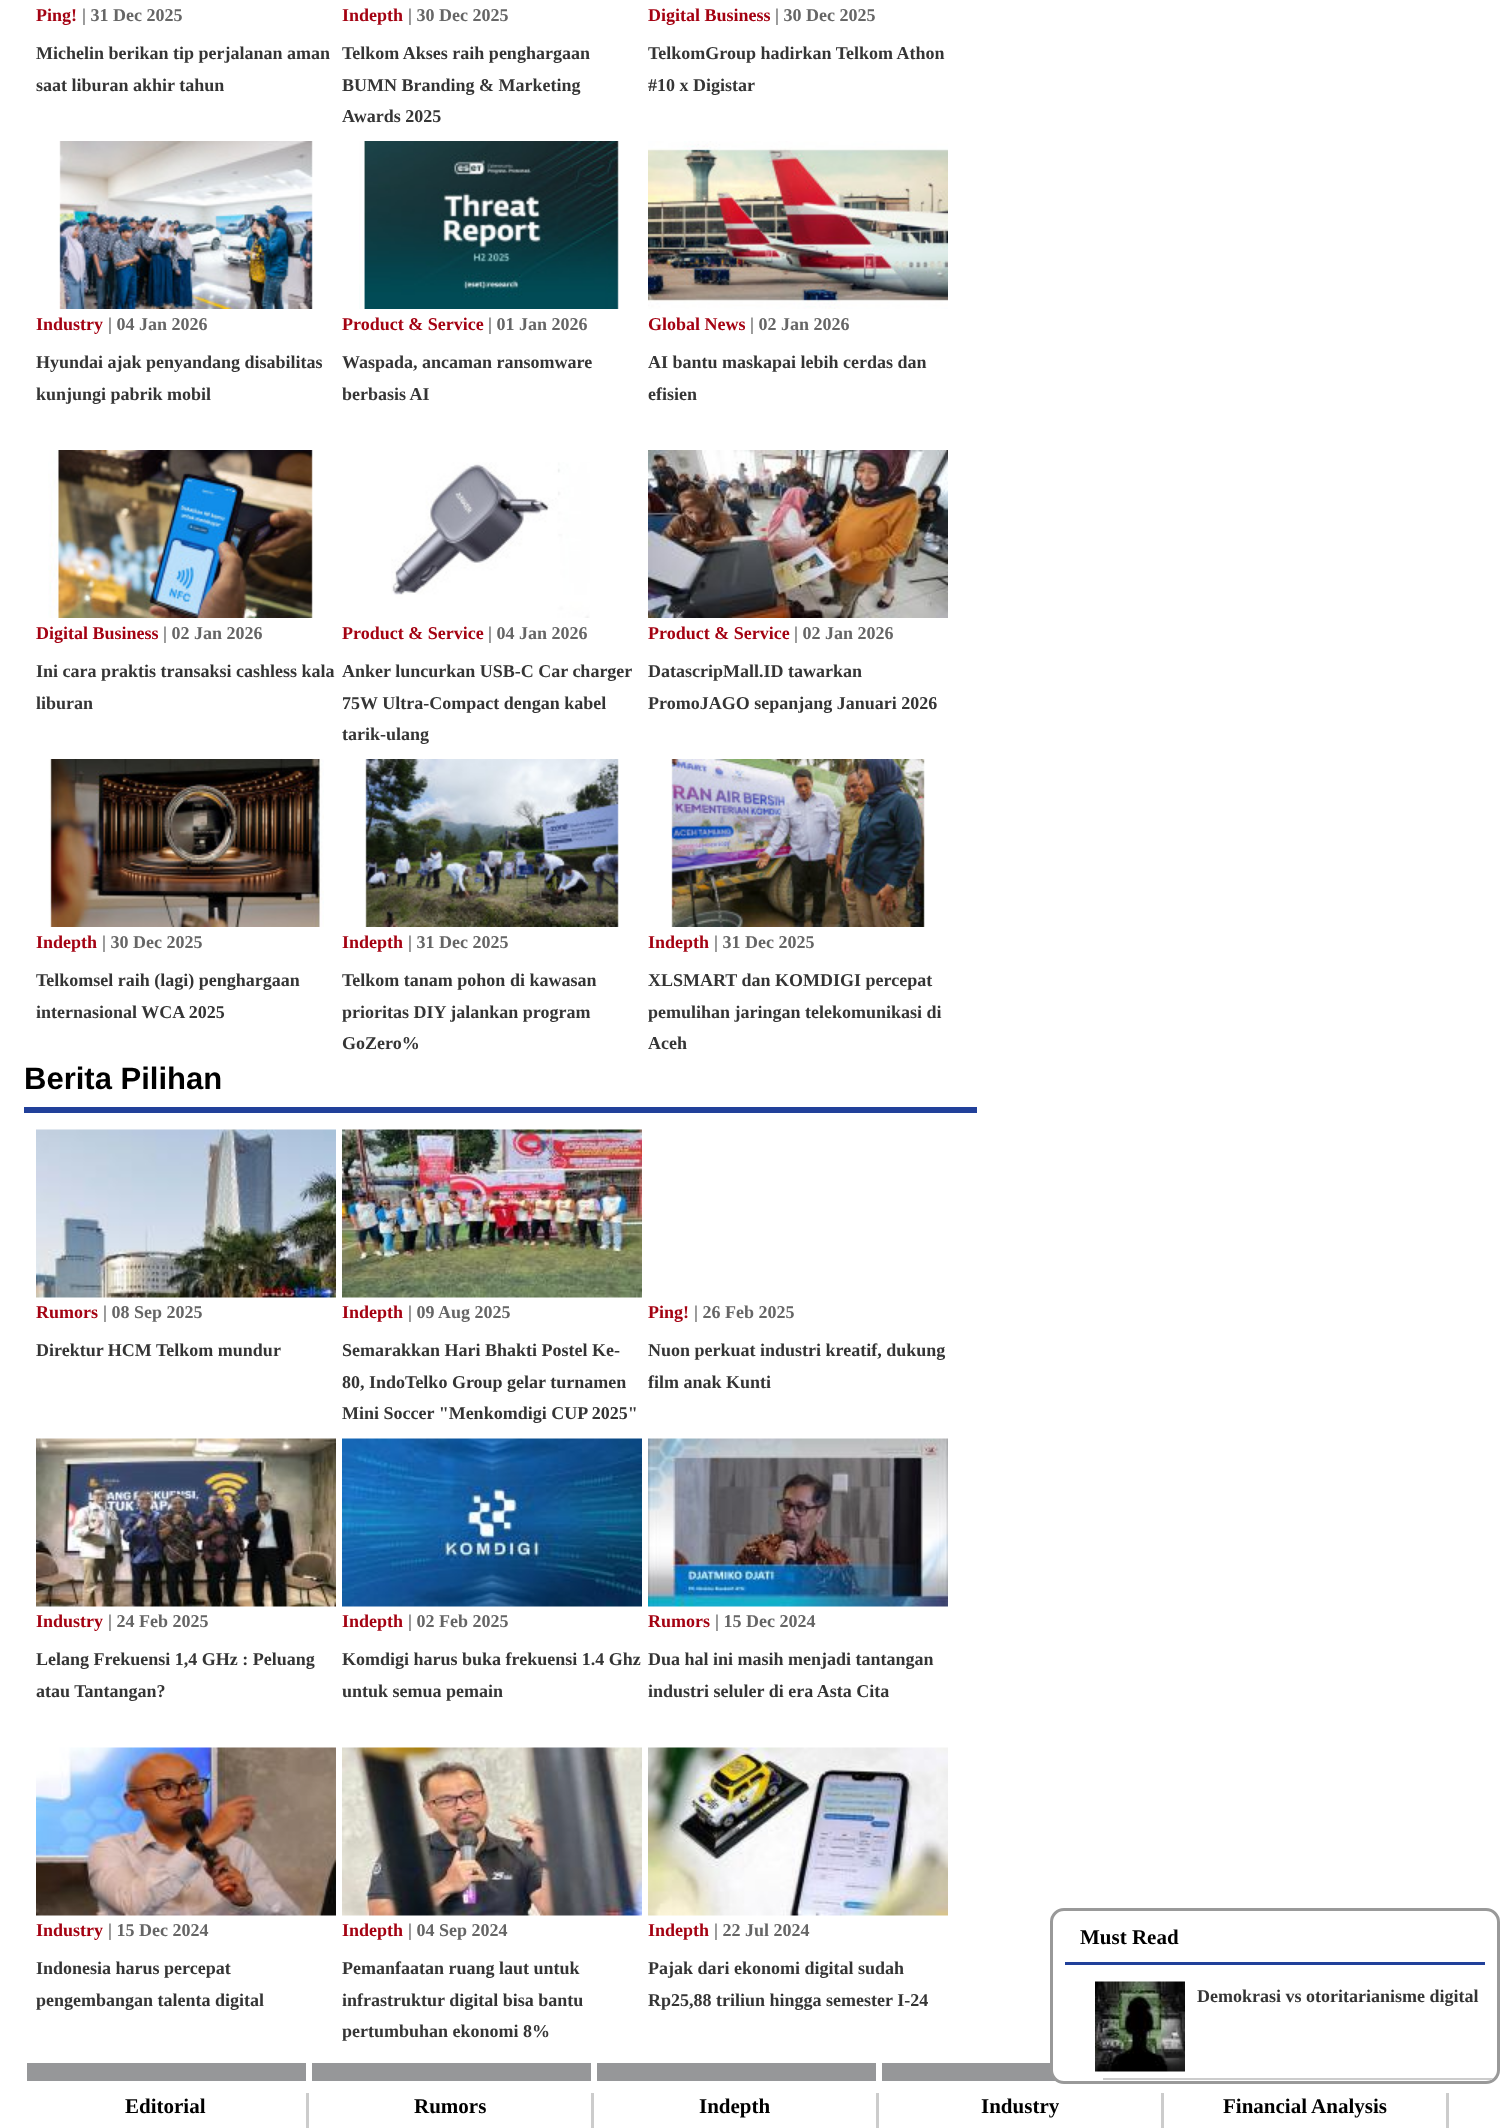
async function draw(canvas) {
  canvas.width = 1502;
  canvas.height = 2128;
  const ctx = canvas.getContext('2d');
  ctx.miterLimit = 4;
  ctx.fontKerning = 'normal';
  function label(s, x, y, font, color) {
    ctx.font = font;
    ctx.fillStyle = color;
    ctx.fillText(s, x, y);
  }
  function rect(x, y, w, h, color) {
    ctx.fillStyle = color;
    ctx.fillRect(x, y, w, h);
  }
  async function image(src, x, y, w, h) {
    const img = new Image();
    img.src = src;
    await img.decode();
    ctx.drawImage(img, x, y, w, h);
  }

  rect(0, 0, 1502, 2128, '#fff');
  label('Ping!', 36, 21, 'bold 18px Liberation Serif', '#a40212');
  label('| 31 Dec 2025', 82, 21, 'bold 18px Liberation Serif', '#666');
  label('Michelin berikan tip perjalanan aman', 36, 59, 'bold 18px Liberation Serif', '#353535');
  label('saat liburan akhir tahun', 36, 91, 'bold 18px Liberation Serif', '#353535');
  label('Indepth', 342, 21, 'bold 18px Liberation Serif', '#a40212');
  label('| 30 Dec 2025', 408, 21, 'bold 18px Liberation Serif', '#666');
  label('Telkom Akses raih penghargaan', 342, 59, 'bold 18px Liberation Serif', '#353535');
  label('BUMN Branding & Marketing', 342, 91, 'bold 18px Liberation Serif', '#353535');
  label('Awards 2025', 342, 122, 'bold 18px Liberation Serif', '#353535');
  label('Digital Business', 648, 21, 'bold 18px Liberation Serif', '#a40212');
  label('| 30 Dec 2025', 775, 21, 'bold 18px Liberation Serif', '#666');
  label('TelkomGroup hadirkan Telkom Athon', 648, 59, 'bold 18px Liberation Serif', '#353535');
  label('#10 x Digistar', 648, 91, 'bold 18px Liberation Serif', '#353535');
  await image('assets/img1.png', 59, 141, 254, 168);
  label('Industry', 36, 330, 'bold 18px Liberation Serif', '#a40212');
  label('| 04 Jan 2026', 108, 330, 'bold 18px Liberation Serif', '#666');
  label('Hyundai ajak penyandang disabilitas', 36, 368, 'bold 18px Liberation Serif', '#353535');
  label('kunjungi pabrik mobil', 36, 400, 'bold 18px Liberation Serif', '#353535');
  await image('assets/img2.png', 359, 141, 260, 168);
  label('Product & Service', 342, 330, 'bold 18px Liberation Serif', '#a40212');
  label('| 01 Jan 2026', 488, 330, 'bold 18px Liberation Serif', '#666');
  label('Waspada, ancaman ransomware', 342, 368, 'bold 18px Liberation Serif', '#353535');
  label('berbasis AI', 342, 400, 'bold 18px Liberation Serif', '#353535');
  await image('assets/img3.png', 648, 141, 300, 168);
  label('Global News', 648, 330, 'bold 18px Liberation Serif', '#a40212');
  label('| 02 Jan 2026', 750, 330, 'bold 18px Liberation Serif', '#666');
  label('AI bantu maskapai lebih cerdas dan', 648, 368, 'bold 18px Liberation Serif', '#353535');
  label('efisien', 648, 400, 'bold 18px Liberation Serif', '#353535');
  await image('assets/img4.png', 48, 450, 265, 168);
  label('Digital Business', 36, 639, 'bold 18px Liberation Serif', '#a40212');
  label('| 02 Jan 2026', 163, 639, 'bold 18px Liberation Serif', '#666');
  label('Ini cara praktis transaksi cashless kala', 36, 677, 'bold 18px Liberation Serif', '#353535');
  label('liburan', 36, 709, 'bold 18px Liberation Serif', '#353535');
  await image('assets/img5.png', 391, 462, 199, 156);
  label('Product & Service', 342, 639, 'bold 18px Liberation Serif', '#a40212');
  label('| 04 Jan 2026', 488, 639, 'bold 18px Liberation Serif', '#666');
  label('Anker luncurkan USB-C Car charger', 342, 677, 'bold 18px Liberation Serif', '#353535');
  label('75W Ultra-Compact dengan kabel', 342, 709, 'bold 18px Liberation Serif', '#353535');
  label('tarik-ulang', 342, 740, 'bold 18px Liberation Serif', '#353535');
  await image('assets/img6.png', 648, 450, 300, 168);
  label('Product & Service', 648, 639, 'bold 18px Liberation Serif', '#a40212');
  label('| 02 Jan 2026', 794, 639, 'bold 18px Liberation Serif', '#666');
  label('DatascripMall.ID tawarkan', 648, 677, 'bold 18px Liberation Serif', '#353535');
  label('PromoJAGO sepanjang Januari 2026', 648, 709, 'bold 18px Liberation Serif', '#353535');
  await image('assets/img7.png', 49, 759, 275, 168);
  label('Indepth', 36, 948, 'bold 18px Liberation Serif', '#a40212');
  label('| 30 Dec 2025', 102, 948, 'bold 18px Liberation Serif', '#666');
  label('Telkomsel raih (lagi) penghargaan', 36, 986, 'bold 18px Liberation Serif', '#353535');
  label('internasional WCA 2025', 36, 1018, 'bold 18px Liberation Serif', '#353535');
  await image('assets/img8.png', 365, 759, 254, 168);
  label('Indepth', 342, 948, 'bold 18px Liberation Serif', '#a40212');
  label('| 31 Dec 2025', 408, 948, 'bold 18px Liberation Serif', '#666');
  label('Telkom tanam pohon di kawasan', 342, 986, 'bold 18px Liberation Serif', '#353535');
  label('prioritas DIY jalankan program', 342, 1018, 'bold 18px Liberation Serif', '#353535');
  label('GoZero%', 342, 1049, 'bold 18px Liberation Serif', '#353535');
  await image('assets/img9.png', 671, 759, 254, 168);
  label('Indepth', 648, 948, 'bold 18px Liberation Serif', '#a40212');
  label('| 31 Dec 2025', 714, 948, 'bold 18px Liberation Serif', '#666');
  label('XLSMART dan KOMDIGI percepat', 648, 986, 'bold 18px Liberation Serif', '#353535');
  label('pemulihan jaringan telekomunikasi di', 648, 1018, 'bold 18px Liberation Serif', '#353535');
  label('Aceh', 648, 1049, 'bold 18px Liberation Serif', '#353535');
  label('Berita Pilihan', 24, 1089, 'bold 31px Liberation Sans', '#000');
  rect(24, 1107, 953, 6, '#21409a');
  await image('assets/img10.png', 36, 1129, 300, 169);
  label('Rumors', 36, 1318, 'bold 18px Liberation Serif', '#a40212');
  label('| 08 Sep 2025', 103, 1318, 'bold 18px Liberation Serif', '#666');
  label('Direktur HCM Telkom mundur', 36, 1356, 'bold 18px Liberation Serif', '#353535');
  await image('assets/img11.png', 342, 1129, 300, 169);
  label('Indepth', 342, 1318, 'bold 18px Liberation Serif', '#a40212');
  label('| 09 Aug 2025', 408, 1318, 'bold 18px Liberation Serif', '#666');
  label('Semarakkan Hari Bhakti Postel Ke-', 342, 1356, 'bold 18px Liberation Serif', '#353535');
  label('80, IndoTelko Group gelar turnamen', 342, 1388, 'bold 18px Liberation Serif', '#353535');
  label('Mini Soccer "Menkomdigi CUP 2025"', 342, 1419, 'bold 18px Liberation Serif', '#353535');
  label('Ping!', 648, 1318, 'bold 18px Liberation Serif', '#a40212');
  label('| 26 Feb 2025', 694, 1318, 'bold 18px Liberation Serif', '#666');
  label('Nuon perkuat industri kreatif, dukung', 648, 1356, 'bold 18px Liberation Serif', '#353535');
  label('film anak Kunti', 648, 1388, 'bold 18px Liberation Serif', '#353535');
  await image('assets/img12.png', 36, 1438, 300, 169);
  label('Industry', 36, 1627, 'bold 18px Liberation Serif', '#a40212');
  label('| 24 Feb 2025', 108, 1627, 'bold 18px Liberation Serif', '#666');
  label('Lelang Frekuensi 1,4 GHz : Peluang', 36, 1665, 'bold 18px Liberation Serif', '#353535');
  label('atau Tantangan?', 36, 1697, 'bold 18px Liberation Serif', '#353535');
  await image('assets/img13.png', 342, 1438, 300, 169);
  label('Indepth', 342, 1627, 'bold 18px Liberation Serif', '#a40212');
  label('| 02 Feb 2025', 408, 1627, 'bold 18px Liberation Serif', '#666');
  label('Komdigi harus buka frekuensi 1.4 Ghz', 342, 1665, 'bold 18px Liberation Serif', '#353535');
  label('untuk semua pemain', 342, 1697, 'bold 18px Liberation Serif', '#353535');
  await image('assets/img14.png', 648, 1438, 300, 169);
  label('Rumors', 648, 1627, 'bold 18px Liberation Serif', '#a40212');
  label('| 15 Dec 2024', 715, 1627, 'bold 18px Liberation Serif', '#666');
  label('Dua hal ini masih menjadi tantangan', 648, 1665, 'bold 18px Liberation Serif', '#353535');
  label('industri seluler di era Asta Cita', 648, 1697, 'bold 18px Liberation Serif', '#353535');
  await image('assets/img15.png', 36, 1747, 300, 169);
  label('Industry', 36, 1936, 'bold 18px Liberation Serif', '#a40212');
  label('| 15 Dec 2024', 108, 1936, 'bold 18px Liberation Serif', '#666');
  label('Indonesia harus percepat', 36, 1974, 'bold 18px Liberation Serif', '#353535');
  label('pengembangan talenta digital', 36, 2006, 'bold 18px Liberation Serif', '#353535');
  await image('assets/img16.png', 342, 1747, 300, 169);
  label('Indepth', 342, 1936, 'bold 18px Liberation Serif', '#a40212');
  label('| 04 Sep 2024', 408, 1936, 'bold 18px Liberation Serif', '#666');
  label('Pemanfaatan ruang laut untuk', 342, 1974, 'bold 18px Liberation Serif', '#353535');
  label('infrastruktur digital bisa bantu', 342, 2006, 'bold 18px Liberation Serif', '#353535');
  label('pertumbuhan ekonomi 8%', 342, 2037, 'bold 18px Liberation Serif', '#353535');
  await image('assets/img17.png', 648, 1747, 300, 169);
  label('Indepth', 648, 1936, 'bold 18px Liberation Serif', '#a40212');
  label('| 22 Jul 2024', 714, 1936, 'bold 18px Liberation Serif', '#666');
  label('Pajak dari ekonomi digital sudah', 648, 1974, 'bold 18px Liberation Serif', '#353535');
  label('Rp25,88 triliun hingga semester I-24', 648, 2006, 'bold 18px Liberation Serif', '#353535');
  rect(27, 2063, 279, 18, '#969799');
  rect(306, 2093, 3, 35, '#ccc');
  label('Editorial', 125, 2113, 'bold 21px Liberation Serif', '#000');
  rect(312, 2063, 279, 18, '#969799');
  rect(591, 2093, 3, 35, '#ccc');
  label('Rumors', 414, 2113, 'bold 21px Liberation Serif', '#000');
  rect(597, 2063, 279, 18, '#969799');
  rect(876, 2093, 3, 35, '#ccc');
  label('Indepth', 699, 2113, 'bold 21px Liberation Serif', '#000');
  rect(882, 2063, 174, 18, '#969799');
  rect(1161, 2093, 3, 35, '#ccc');
  label('Industry', 981, 2113, 'bold 21px Liberation Serif', '#000');
  rect(1446, 2093, 3, 35, '#ccc');
  label('Financial Analysis', 1223, 2113, 'bold 21px Liberation Serif', '#000');
  ctx.fillStyle = '#fff';
  ctx.beginPath();
  ctx.roundRect(1051.5, 1909.5, 447, 173, 12.5);
  ctx.fill();
  ctx.strokeStyle = '#999';
  ctx.lineWidth = 3;
  ctx.stroke();
  label('Must Read', 1080, 1944, 'bold 21px Liberation Serif', '#000');
  rect(1065, 1962, 420, 3, '#21409a');
  await image('assets/img18.png', 1095, 1981, 90, 91);
  label('Demokrasi vs otoritarianisme digital', 1197, 2002, 'bold 18px Liberation Serif', '#353535');
  ctx.save();
  ctx.beginPath();
  ctx.roundRect(1053, 1911, 444, 170, 11);
  ctx.clip();
  rect(1103, 2078, 394, 2, '#ccc');
  ctx.restore();
}

draw(document.querySelector('canvas'));
